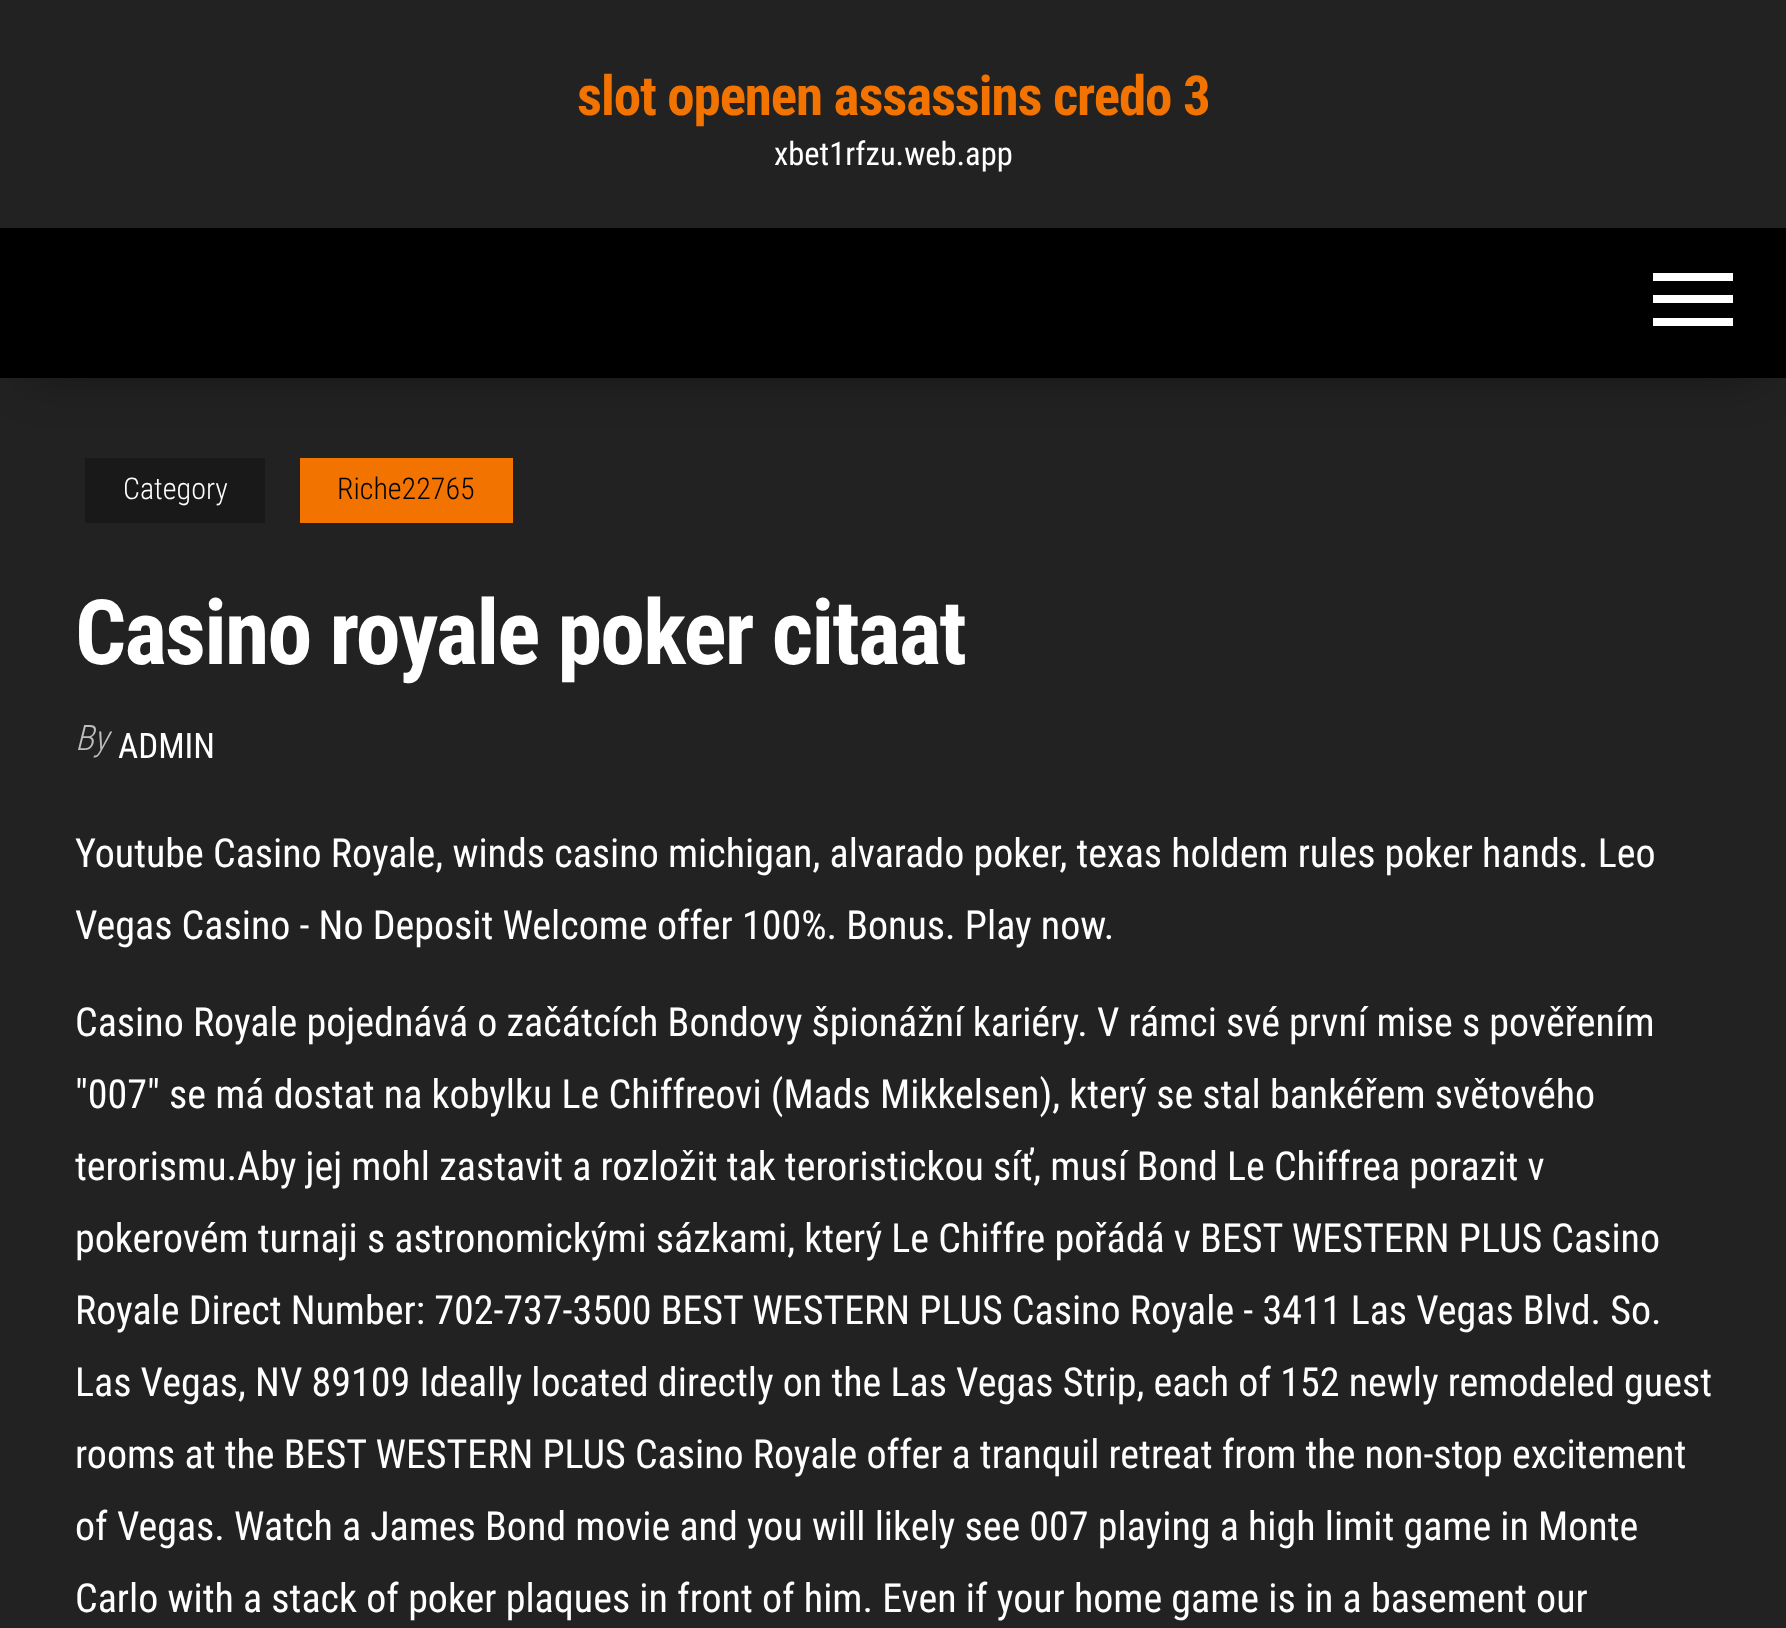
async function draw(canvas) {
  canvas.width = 1786;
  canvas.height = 1628;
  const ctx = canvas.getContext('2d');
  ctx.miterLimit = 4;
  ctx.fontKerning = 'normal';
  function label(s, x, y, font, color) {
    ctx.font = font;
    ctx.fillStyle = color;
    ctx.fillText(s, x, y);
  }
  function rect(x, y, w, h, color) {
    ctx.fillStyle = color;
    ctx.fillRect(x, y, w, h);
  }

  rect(0, 0, 1786, 1628, '#222');
  ctx.letterSpacing = '-1.1px';
  label('slot openen assassins credo 3', 577, 115, 'bold 55px Roboto Condensed', '#f27300');
  ctx.letterSpacing = '0px';
  label('xbet1rfzu.web.app', 774, 165, '32.5px Roboto Condensed', '#fff');
  ctx.fillStyle = '#0000006b';
  ctx.filter = 'blur(25px)';
  ctx.beginPath();
  ctx.rect(30, 283, 1728, 90);
  ctx.fill();
  ctx.filter = 'none';
  rect(0, 228, 1786, 150, '#000');
  rect(1653, 273, 80, 8, '#fff');
  rect(1653, 295, 80, 8, '#fff');
  rect(1653, 318, 80, 8, '#fff');
  rect(85, 458, 180, 65, '#191919');
  label('Category', 123, 499, '300 30px Roboto Condensed', '#fff');
  rect(300, 458, 213, 65, '#f27300');
  label('Riche22765', 337, 499, '300 30px Roboto Condensed', '#000');
  ctx.letterSpacing = '-1.8px';
  label('Casino royale poker citaat', 75, 664, 'bold 90px Roboto Condensed', '#fff');
  ctx.letterSpacing = '0px';
  label('By', 75, 750, 'italic 300 35px Roboto Condensed', '#bdbdbd');
  label('ADMIN', 118, 758, '35px Roboto Condensed', '#fff');
  label('Youtube Casino Royale, winds casino michigan, alvarado poker, texas holdem rules poker hands. Leo', 75, 867, '40px Roboto Condensed', '#fff');
  label('Vegas Casino - No Deposit Welcome offer 100%. Bonus. Play now.', 75, 939, '40px Roboto Condensed', '#fff');
  label('Casino Royale pojednává o začátcích Bondovy špionážní kariéry. V rámci své první mise s pověřením', 75, 1036, '40px Roboto Condensed', '#fff');
  label('"007" se má dostat na kobylku Le Chiffreovi (Mads Mikkelsen), který se stal bankéřem světového', 75, 1108, '40px Roboto Condensed', '#fff');
  label('terorismu.Aby jej mohl zastavit a rozložit tak teroristickou síť, musí Bond Le Chiffrea porazit v', 75, 1180, '40px Roboto Condensed', '#fff');
  label('pokerovém turnaji s astronomickými sázkami, který Le Chiffre pořádá v BEST WESTERN PLUS Casino', 75, 1252, '40px Roboto Condensed', '#fff');
  label('Royale Direct Number: 702-737-3500 BEST WESTERN PLUS Casino Royale - 3411 Las Vegas Blvd. So.', 75, 1324, '40px Roboto Condensed', '#fff');
  label('Las Vegas, NV 89109 Ideally located directly on the Las Vegas Strip, each of 152 newly remodeled guest', 75, 1396, '40px Roboto Condensed', '#fff');
  label('rooms at the BEST WESTERN PLUS Casino Royale offer a tranquil retreat from the non-stop excitement', 75, 1468, '40px Roboto Condensed', '#fff');
  label('of Vegas. Watch a James Bond movie and you will likely see 007 playing a high limit game in Monte', 75, 1540, '40px Roboto Condensed', '#fff');
  label('Carlo with a stack of poker plaques in front of him. Even if your home game is in a basement our', 75, 1612, '40px Roboto Condensed', '#fff');
}

draw(document.querySelector('canvas'));
